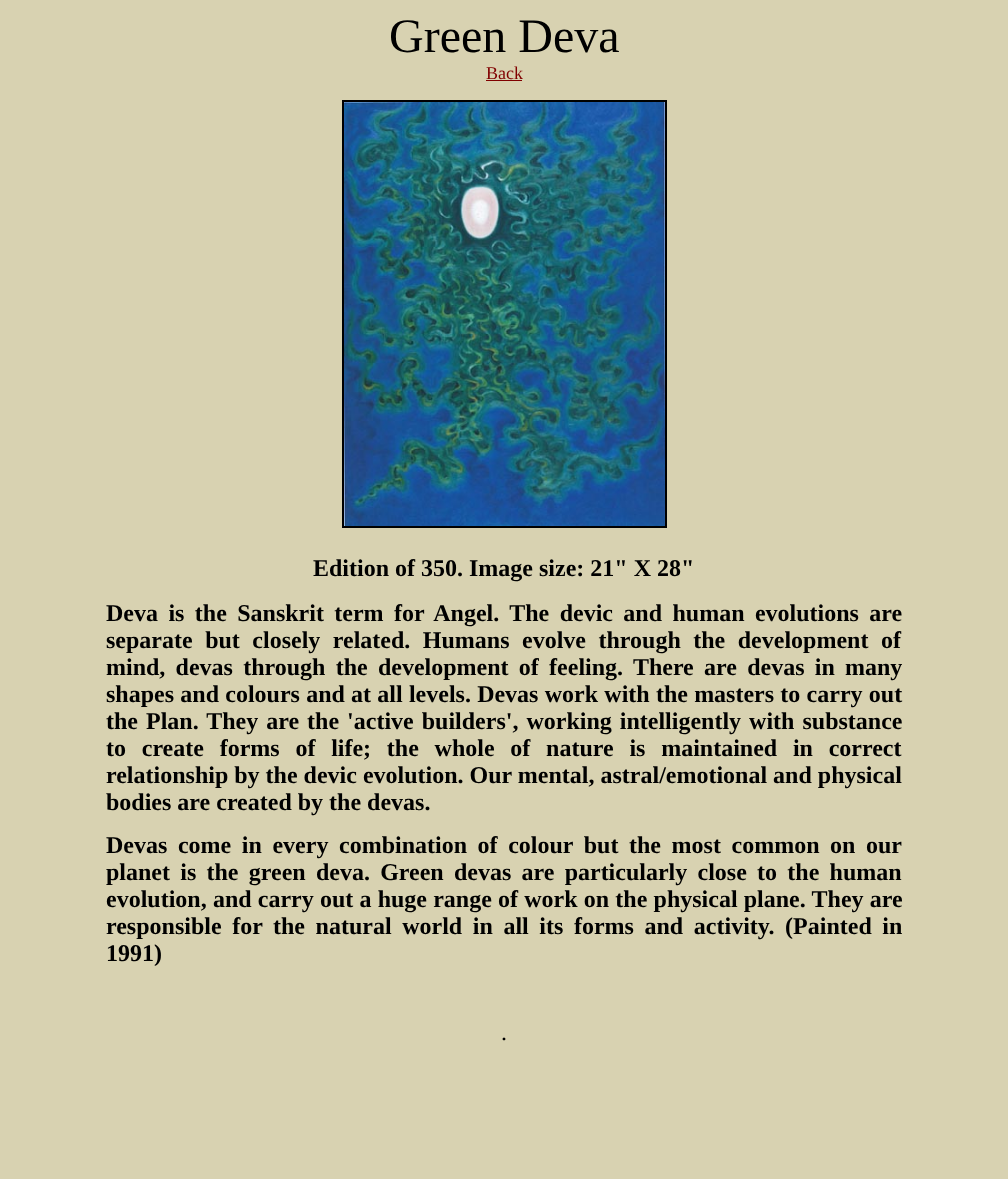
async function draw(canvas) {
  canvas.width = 1008;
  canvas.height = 1179;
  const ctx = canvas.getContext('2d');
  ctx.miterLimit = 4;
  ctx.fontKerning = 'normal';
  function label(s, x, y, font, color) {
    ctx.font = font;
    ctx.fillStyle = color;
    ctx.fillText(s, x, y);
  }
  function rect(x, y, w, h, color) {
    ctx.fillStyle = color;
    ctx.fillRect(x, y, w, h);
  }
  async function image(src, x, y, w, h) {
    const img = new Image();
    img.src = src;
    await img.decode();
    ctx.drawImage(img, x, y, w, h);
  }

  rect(0, 0, 1008, 1179, '#d8d2b1');
  label('Green Deva', 389, 52, '48px Liberation Serif', '#000');
  label('Back', 486, 79, '18px Liberation Serif', '#800000');
  rect(486, 80, 36, 1, '#800000');
  ctx.strokeStyle = '#000';
  ctx.lineWidth = 2;
  ctx.strokeRect(343, 101, 323, 426);
  await image('assets/img1.png', 344, 102, 321, 424);
  label('Edition of 350. Image size: 21" X 28"', 313, 576, 'bold 24px Liberation Serif', '#000');
  ctx.wordSpacing = '4.4px';
  label('Deva is the Sanskrit term for Angel. The devic and human evolutions are', 106, 621, 'bold 24px Liberation Serif', '#000');
  ctx.wordSpacing = '6.5px';
  label('separate but closely related. Humans evolve through the development of', 106, 648, 'bold 24px Liberation Serif', '#000');
  ctx.wordSpacing = '4.25px';
  label('mind, devas through the development of feeling. There are devas in many', 106, 675, 'bold 24px Liberation Serif', '#000');
  ctx.wordSpacing = '0.25px';
  label('shapes and colours and at all levels. Devas work with the masters to carry out', 106, 702, 'bold 24px Liberation Serif', '#000');
  ctx.wordSpacing = '2px';
  label('the Plan. They are the \'active builders\', working intelligently with substance', 106, 729, 'bold 24px Liberation Serif', '#000');
  ctx.wordSpacing = '9.75px';
  label('to create forms of life; the whole of nature is maintained in correct', 106, 756, 'bold 24px Liberation Serif', '#000');
  ctx.wordSpacing = '0px';
  label('relationship by the devic evolution. Our mental, astral/emotional and physical', 106, 783, 'bold 24px Liberation Serif', '#000');
  label('bodies are created by the devas.', 106, 810, 'bold 24px Liberation Serif', '#000');
  ctx.wordSpacing = '4.6px';
  label('Devas come in every combination of colour but the most common on our', 106, 853, 'bold 24px Liberation Serif', '#000');
  ctx.wordSpacing = '4.25px';
  label('planet is the green deva. Green devas are particularly close to the human', 106, 880, 'bold 24px Liberation Serif', '#000');
  ctx.wordSpacing = '0.2px';
  label('evolution, and carry out a huge range of work on the physical plane. They are', 106, 907, 'bold 24px Liberation Serif', '#000');
  ctx.wordSpacing = '4.6px';
  label('responsible for the natural world in all its forms and activity. (Painted in', 106, 934, 'bold 24px Liberation Serif', '#000');
  ctx.wordSpacing = '0px';
  label('1991)', 106, 961, 'bold 24px Liberation Serif', '#000');
  label('.', 501, 1040, '24px Liberation Serif', '#000');
}

draw(document.querySelector('canvas'));
